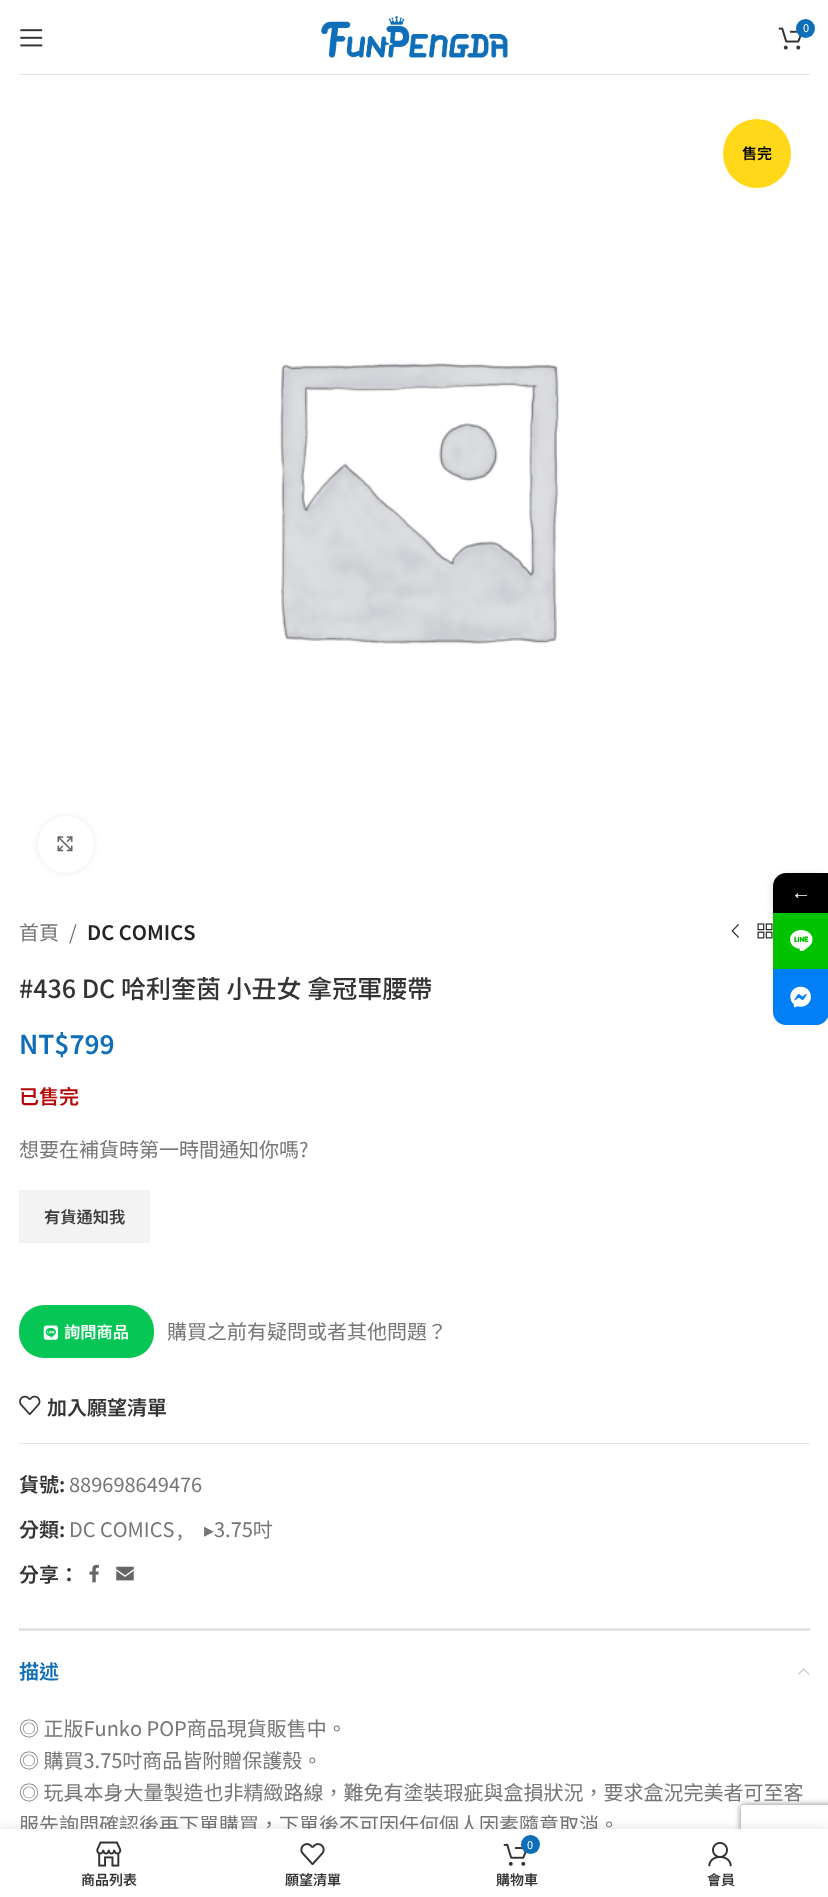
async function draw(canvas) {
  canvas.width = 828;
  canvas.height = 1897;
  const ctx = canvas.getContext('2d');
  ctx.miterLimit = 4;
  ctx.fontKerning = 'none';
  function label(s, x, y, font, color) {
    ctx.font = font;
    ctx.fillStyle = color;
    ctx.fillText(s, x, y);
  }
  function rect(x, y, w, h, color) {
    ctx.fillStyle = color;
    ctx.fillRect(x, y, w, h);
  }
  function roundedRect(x, y, w, h, r, color) {
    ctx.fillStyle = color;
    ctx.beginPath();
    ctx.roundRect(x, y, w, h, r);
    ctx.fill();
  }
  async function image(src, x, y, w, h) {
    const img = new Image();
    img.src = src;
    await img.decode();
    ctx.drawImage(img, x, y, w, h);
  }
  let path;

  rect(0, 0, 828, 1897, '#fff');
  rect(19, 74, 791, 1, '#e3e3e3');
  await image('assets/img1.png', 321, 16, 187, 42);
  await image('assets/img2.png', 778, 27, 24, 23);
  ctx.fillStyle = '#0e6eb8';
  ctx.beginPath();
  ctx.arc(805.5, 28.5, 9.5, 0, 2 * Math.PI);
  ctx.fill();
  label('0', 803, 32, '11px Noto Sans TC', '#fff');
  await image('assets/img3.png', 20, 29, 23, 18);
  roundedRect(723, 119, 68, 69, 34, '#ffd919');
  label('售完', 742, 159, '600 15px Noto Sans TC', '#000');
  await image('assets/img4.png', 279, 363, 281, 282);
  ctx.fillStyle = '#00000014';
  ctx.filter = 'blur(3px)';
  ctx.beginPath();
  ctx.roundRect(38, 816, 56, 57, 28);
  ctx.fill();
  ctx.filter = 'none';
  roundedRect(38, 816, 56, 57, 28, '#fff');
  await image('assets/img5.png', 57, 836, 16, 16);
  label('首頁', 19, 940, '20px Noto Sans TC', '#767676');
  label('/', 69, 940, '20px Noto Sans TC', '#767676');
  label('DC COMICS', 87, 940, '600 20px Noto Sans TC', '#242424');
  await image('assets/img6.png', 731, 924, 8, 14);
  await image('assets/img7.png', 757, 923, 16, 16);
  label('#436 DC 哈利奎茵 小丑女 拿冠軍腰帶', 19, 998, '500 25px Noto Sans TC', '#333');
  label('NT$799', 19, 1054, '600 26px Noto Sans TC', '#0e6eb8');
  label('已售完', 19, 1104, '600 20px Noto Sans TC', '#b50808');
  label('想要在補貨時第一時間通知你嗎?', 19, 1157, '20px Noto Sans TC', '#767676');
  rect(19, 1190, 131, 53, '#f3f3f3');
  label('有貨通知我', 44, 1223, '600 16.25px Noto Sans TC', '#3e3e3e');
  roundedRect(19, 1305, 135, 53, 25, '#06c755');
  await image('assets/img8.png', 43, 1325, 15, 15);
  label('詢問商品', 64, 1338, '600 16.25px Noto Sans TC', '#fff');
  label('購買之前有疑問或者其他問題？', 167, 1339, '20px Noto Sans TC', '#767676');
  await image('assets/img9.png', 19, 1395, 22, 20);
  label('加入願望清單', 47, 1415, '600 20px Noto Sans TC', '#333');
  rect(19, 1443, 791, 1, '#e4e4e4');
  label('貨號:', 19, 1492, '600 20px Noto Sans TC', '#333');
  label('889698649476', 69, 1492, '20px Noto Sans TC', '#767676');
  label('分類:', 19, 1537, '600 20px Noto Sans TC', '#333');
  label('DC COMICS', 69, 1537, '20px Noto Sans TC', '#767676');
  label(',', 177, 1537, '20px Noto Sans TC', '#767676');
  label('▸', 204, 1537, '20px DejaVu Sans', '#767676');
  label('3.75吋', 214, 1537, '20px Noto Sans TC', '#767676');
  label('分享：', 19, 1582, '600 20px Noto Sans TC', '#333');
  await image('assets/img10.png', 89, 1564, 10, 19);
  await image('assets/img11.png', 116, 1566, 18, 15);
  rect(19, 1628, 791, 3, '#e4e4e4');
  label('描述', 19, 1679, '600 20px Noto Sans TC', '#0e6eb8');
  await image('assets/img12.png', 798, 1668, 12, 7);
  label('◎ 正版Funko POP商品現貨販售中。', 19, 1736, '20px Noto Sans TC', '#767676');
  label('◎ 購買3.75吋商品皆附贈保護殼。', 19, 1768, '20px Noto Sans TC', '#767676');
  label('◎ 玩具本身大量製造也非精緻路線，難免有塗裝瑕疵與盒損狀況，要求盒況完美者可至客', 19, 1800, '20px Noto Sans TC', '#767676');
  label('服先詢問確認後再下單購買，下單後不可因任何個人因素隨意取消。', 19, 1832, '20px Noto Sans TC', '#767676');
  ctx.fillStyle = '#00000029';
  ctx.filter = 'blur(4px)';
  ctx.beginPath();
  ctx.roundRect(773, 876, 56, 40, 13);
  ctx.fill();
  ctx.filter = 'none';
  ctx.fillStyle = '#000';
  path = new Path2D('M786 873H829V913H773V886C773 879 779 873 786 873Z');
  ctx.fill(path);
  label('←', 791, 899, '20px Liberation Serif', '#fff');
  rect(773, 913, 55, 56, '#00c300');
  await image('assets/img13.png', 790, 930, 23, 21);
  ctx.fillStyle = '#007ff7';
  path = new Path2D('M773 969H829V1012C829 1019 823 1025 816 1025H786C779 1025 773 1019 773 1012Z');
  ctx.fill(path);
  await image('assets/img14.png', 790, 986, 21, 22);
  ctx.fillStyle = '#0000001f';
  ctx.filter = 'blur(5.5px)';
  ctx.beginPath();
  ctx.rect(0, 1829, 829, 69);
  ctx.fill();
  ctx.filter = 'none';
  ctx.save();
  path = new Path2D('M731 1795H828V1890H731ZM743.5 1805H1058.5C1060 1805 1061 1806 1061 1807.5V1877.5C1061 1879 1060 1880 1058.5 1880H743.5C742 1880 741 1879 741 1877.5V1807.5C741 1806 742 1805 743.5 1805Z');
  ctx.clip(path, 'evenodd');
  ctx.fillStyle = '#808080';
  ctx.filter = 'blur(3px)';
  ctx.beginPath();
  ctx.roundRect(741, 1805, 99, 75, 2.5);
  ctx.fill();
  ctx.filter = 'none';
  ctx.restore();
  rect(0, 1829, 828, 68, '#fff');
  await image('assets/img15.png', 96, 1841, 26, 26);
  label('商品列表', 81, 1885, '600 14px Noto Sans TC', '#333');
  await image('assets/img16.png', 300, 1843, 25, 22);
  label('願望清單', 285, 1885, '600 14px Noto Sans TC', '#333');
  await image('assets/img17.png', 503, 1843, 24, 23);
  ctx.fillStyle = '#0e6eb8';
  ctx.beginPath();
  ctx.arc(530.5, 1844.5, 9.5, 0, 2 * Math.PI);
  ctx.fill();
  label('0', 527, 1849, '11px Noto Sans TC', '#fff');
  label('購物車', 496, 1885, '600 14px Noto Sans TC', '#333');
  await image('assets/img18.png', 708, 1842, 24, 25);
  label('會員', 707, 1885, '600 14px Noto Sans TC', '#333');
}

draw(document.querySelector('canvas'));
